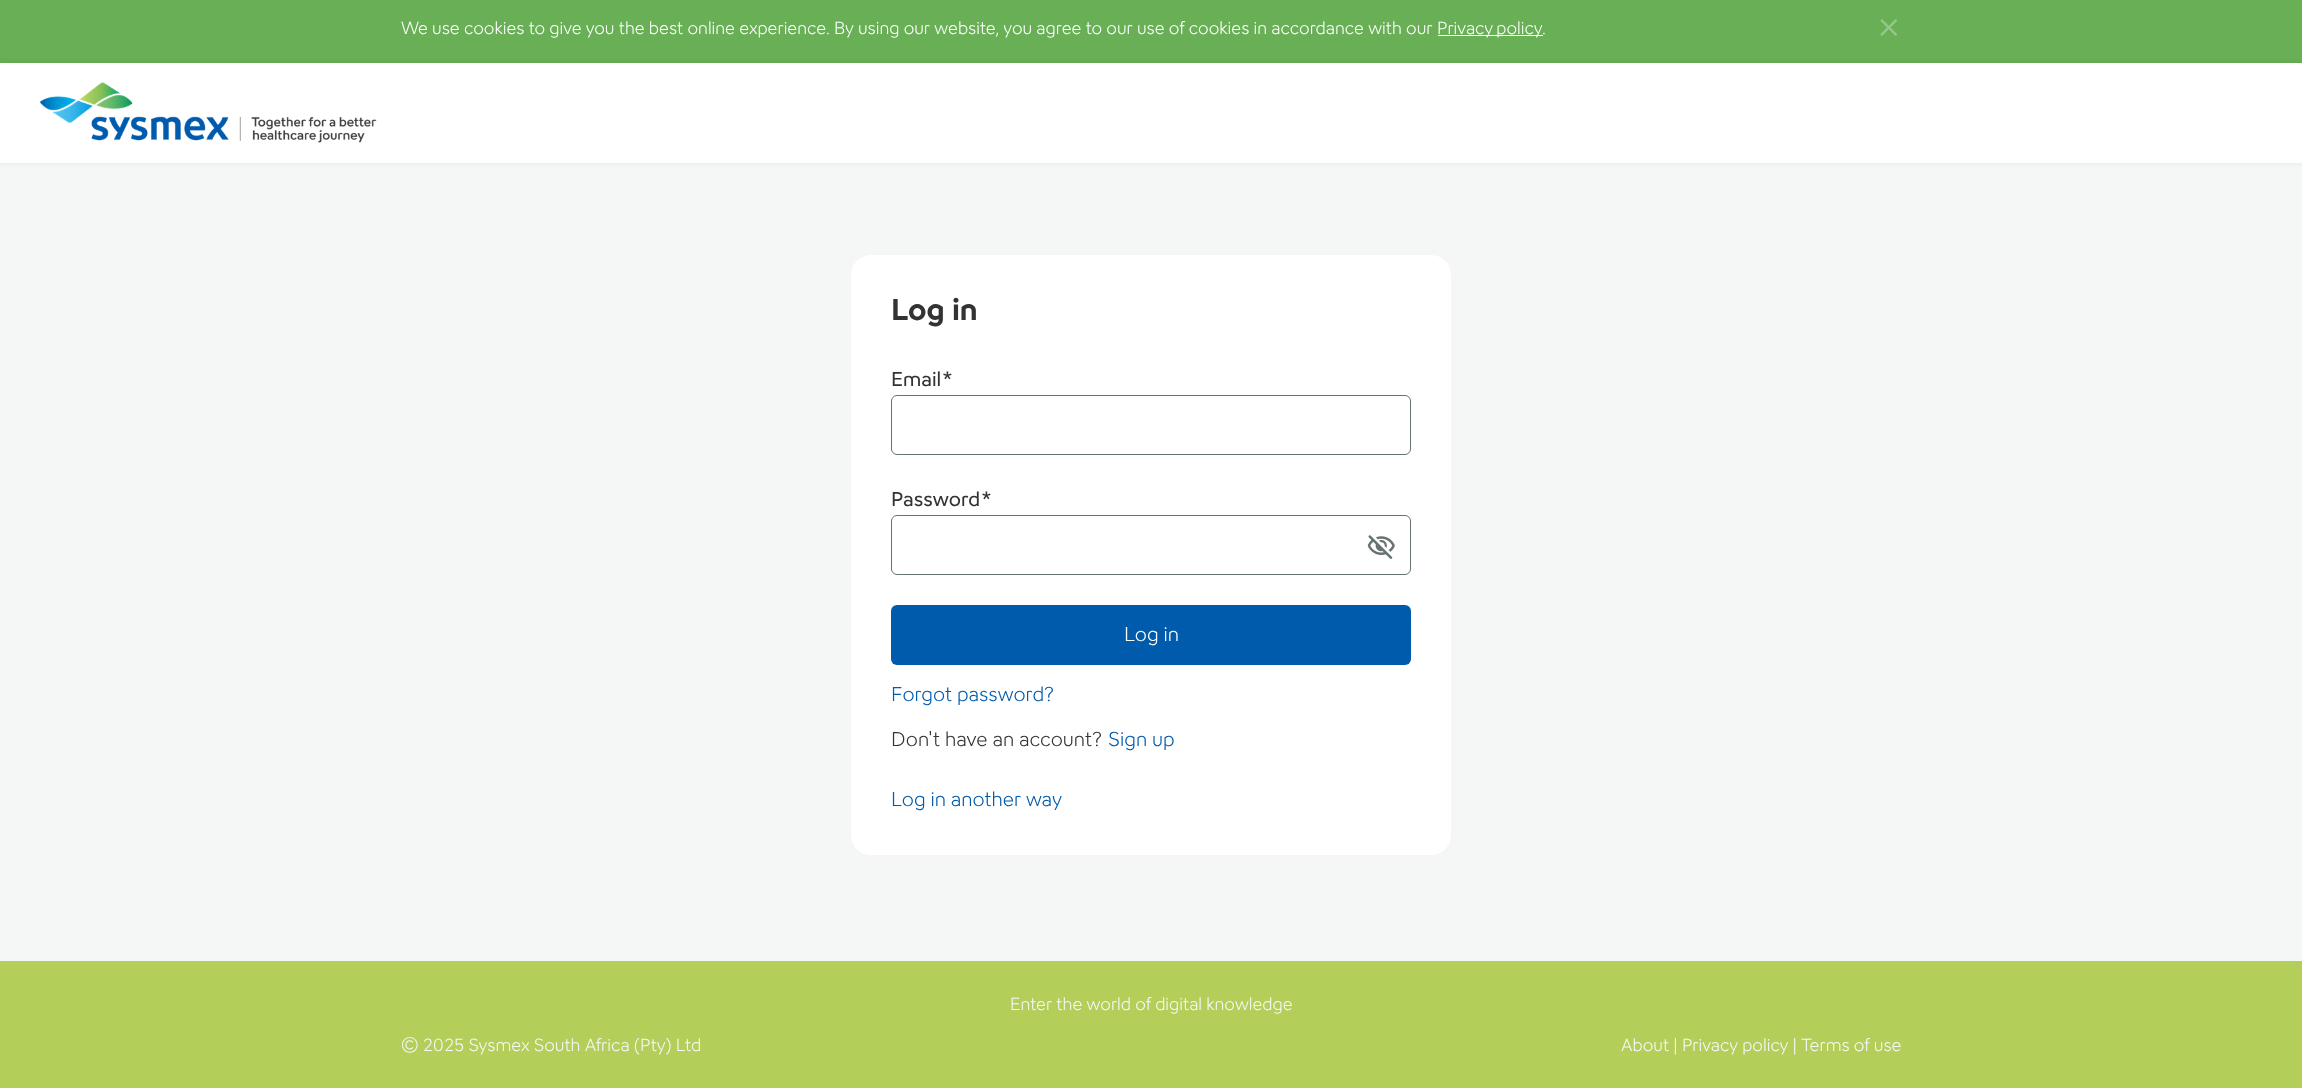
<svg xmlns="http://www.w3.org/2000/svg" width="2302" height="1088" viewBox="0 0 2302 1088">
  <style>
    .t1 { font: 300 17.5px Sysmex; fill: #fff; }
    .t2 { font: bold 30px Sysmex; fill: #333; }
    .t3 { font: 20px Sysmex; fill: #333; }
    .t4 { font: 300 20px Sysmex; fill: #fff; }
    .t5 { font: 300 20px Sysmex; fill: #005bac; }
    .t6 { font: 300 20px Sysmex; fill: #333; }
    .t7 { font: 300 17.5px Sysmex; fill: #f7f7f7; }
  </style>
  <rect width="100%" height="100%" fill="#f5f6f6"/>
  <rect x="0" y="0" width="2302" height="63" fill="#68af56"/>
  <text x="401" y="34" class="t1">We use cookies to give you the best online experience. By using our website, you agree to our use of cookies in accordance with our</text>
  <rect x="1438" y="35" width="105" height="1" fill="#fff"/>
  <text x="1437" y="34" word-spacing="-1" class="t1">Privacy policy</text>
  <text x="1542" y="34" class="t1">.</text>
  <image x="1880" y="19" width="17" height="17" href="images/1.png"/>
  <rect x="0" y="63" width="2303" height="100" fill="#21222214" filter="blur(2.5px)"/>
  <rect x="0" y="63" width="2302" height="100" fill="#fff"/>
  <image x="40" y="82" width="337" height="61" href="images/2.png"/>
  <rect x="851" y="255" width="600" height="600" rx="20" fill="#fff"/>
  <text x="891" y="320" class="t2">Log in</text>
  <text x="891" y="386" class="t3">Email</text>
  <text x="942" y="386" class="t3">*</text>
  <rect x="891.5" y="395.5" width="519" height="59" rx="5.5" fill="none" stroke="#687272"/>
  <text x="891" y="506" class="t3">Password</text>
  <text x="981" y="506" class="t3">*</text>
  <rect x="891.5" y="515.5" width="519" height="59" rx="5.5" fill="none" stroke="#687272"/>
  <image x="1367" y="535" width="28" height="24" href="images/3.png"/>
  <rect x="891" y="605" width="520" height="60" rx="6" fill="#005bac"/>
  <text x="1124" y="641" class="t4">Log in</text>
  <text x="891" y="701" class="t5">Forgot password?</text>
  <text x="891" y="746" class="t6">Don't have an account?</text>
  <text x="1108" y="746" class="t5">Sign up</text>
  <text x="891" y="806" class="t5">Log in another way</text>
  <rect x="0" y="961" width="2302" height="127" fill="#b3cf5a"/>
  <text x="1010" y="1010" class="t7">Enter the world of digital knowledge</text>
  <text x="401" y="1051" class="t7">© 2025 Sysmex South Africa (Pty) Ltd</text>
  <text x="1621" y="1051" class="t7">About | Privacy policy | Terms of use</text>
</svg>
